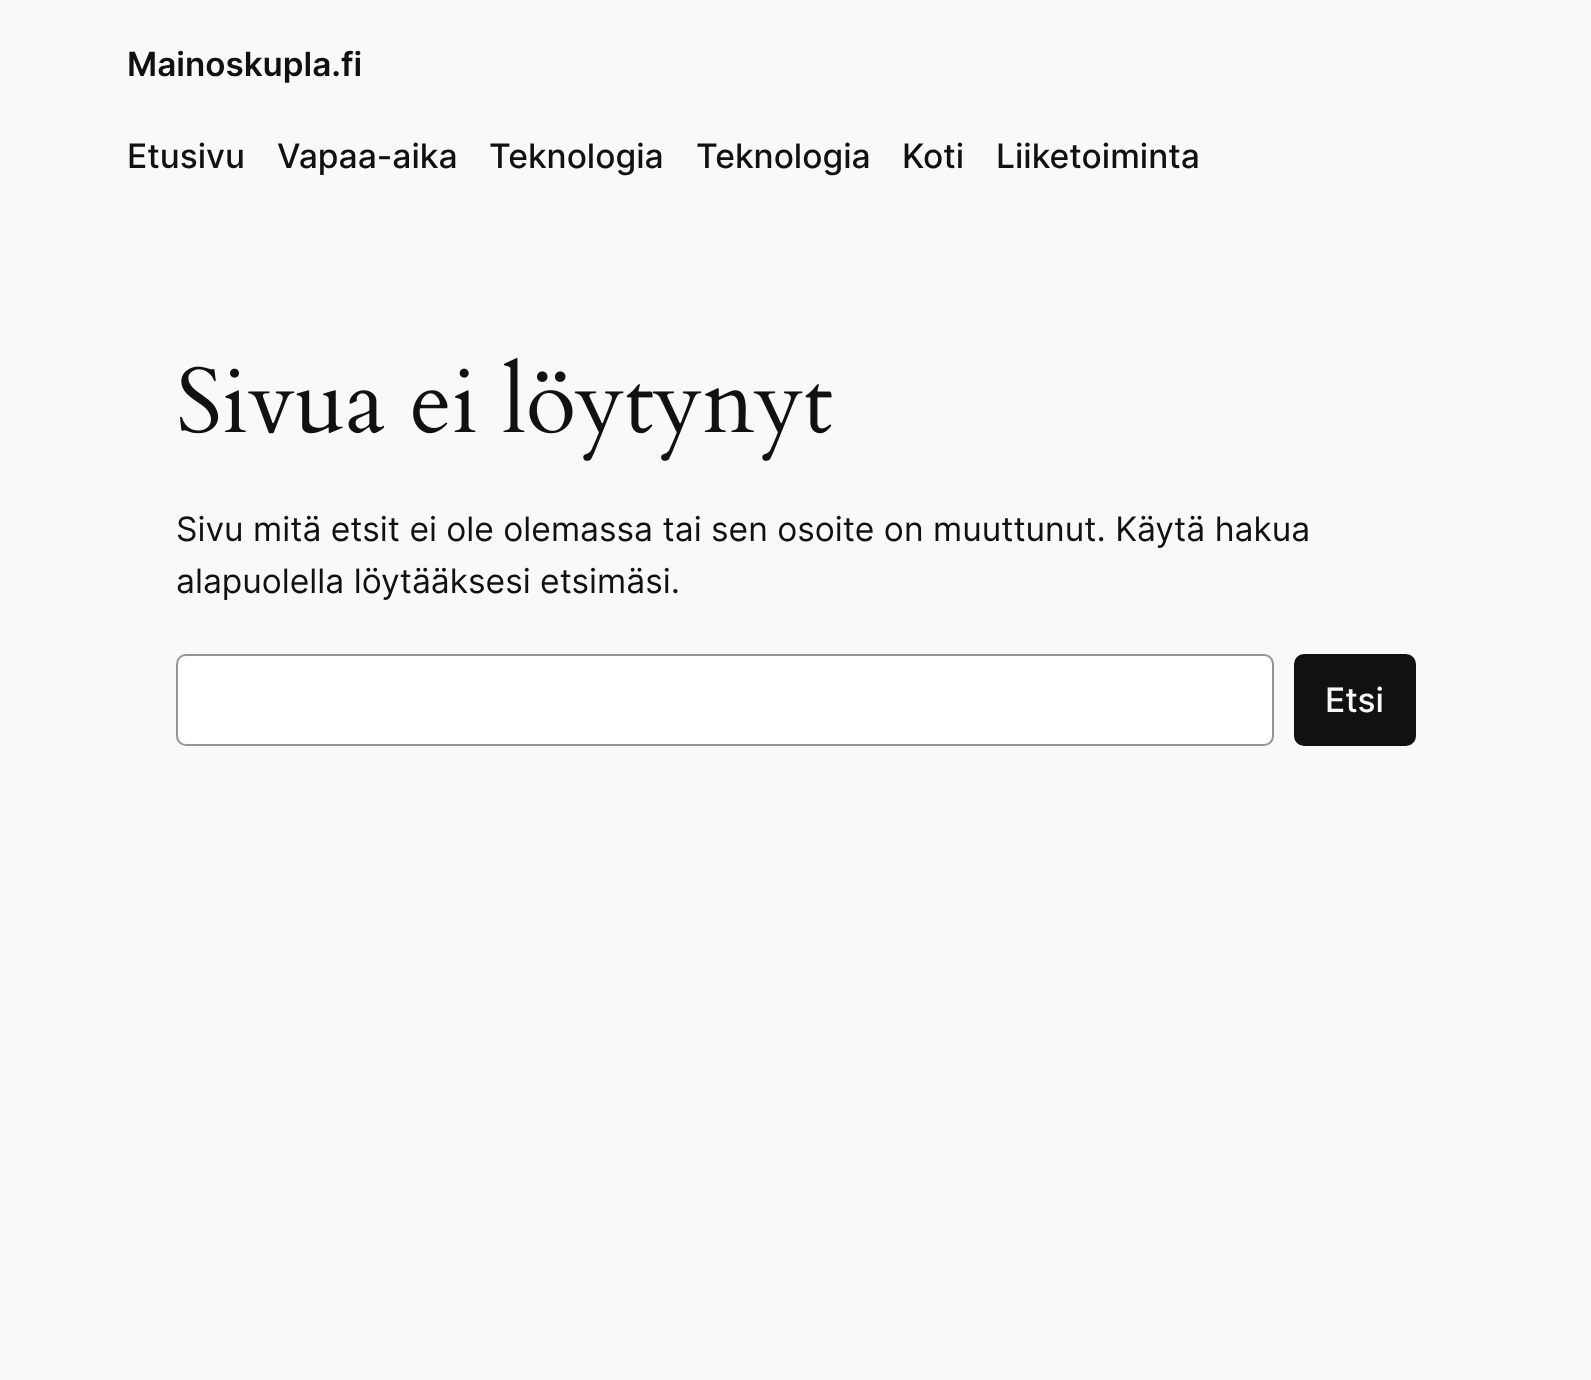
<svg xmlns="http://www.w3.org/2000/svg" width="1591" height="1380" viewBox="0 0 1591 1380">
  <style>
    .t1 { font: 600 33.25px Inter; fill: #111; }
    .t2 { font: 500 33.6px Inter; fill: #111; }
    .t3 { font: 33.6px Inter; fill: #111; }
    .t4 { font: 500 33.6px Inter; fill: #f9f9f9; }
  </style>
  <rect width="100%" height="100%" fill="#f9f9f9"/>
  <text x="127" y="76" class="t1">Mainoskupla.fi</text>
  <text x="127" y="168" class="t2">Etusivu</text>
  <text x="277" y="168" class="t2">Vapaa-aika</text>
  <text x="489" y="168" class="t2">Teknologia</text>
  <text x="696" y="168" class="t2">Teknologia</text>
  <text x="902" y="168" class="t2">Koti</text>
  <text x="996" y="168" class="t2">Liiketoiminta</text>
  <image x="180" y="358" width="652" height="103" href="images/1.png"/>
  <text x="176" y="541" class="t3">Sivu mitä etsit ei ole olemassa tai sen osoite on muuttunut. Käytä hakua</text>
  <text x="176" y="593" class="t3">alapuolella löytääksesi etsimäsi.</text>
  <rect x="177" y="655" width="1096" height="90" rx="9" fill="#fff" stroke="#949494" stroke-width="2"/>
  <rect x="1294" y="654" width="122" height="92" rx="10" fill="#111"/>
  <text x="1325" y="712" class="t4">Etsi</text>
</svg>
